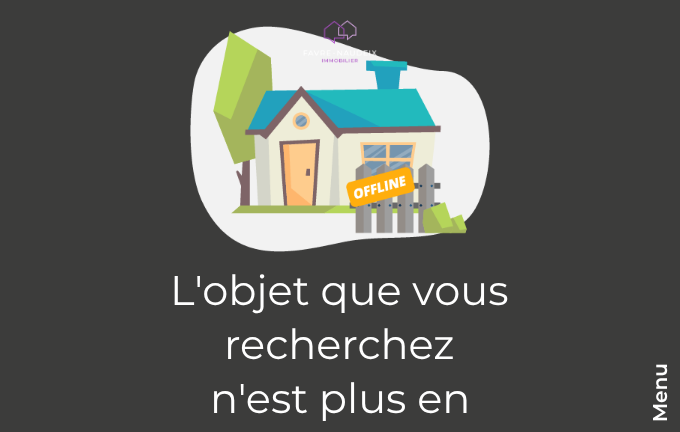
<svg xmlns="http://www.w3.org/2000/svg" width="680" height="432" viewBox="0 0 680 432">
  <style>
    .t1 { font: 41.5px Montserrat; fill: #fff; }
    .t2 { font: 600 20px Montserrat; fill: #fff; }
  </style>
  <rect width="100%" height="100%" fill="#3c3c3b"/>
  <image x="190" y="26" width="300" height="226" href="images/1.png"/>
  <text x="170" y="305" class="t1">L'objet que vous</text>
  <text x="224" y="359" class="t1">recherchez</text>
  <text x="210" y="413" class="t1">n'est plus en</text>
  <image x="303" y="20" width="74" height="43" href="images/2.png"/>
  <text x="667" y="422" transform="rotate(-90 667 422)" class="t2">Menu</text>
</svg>
